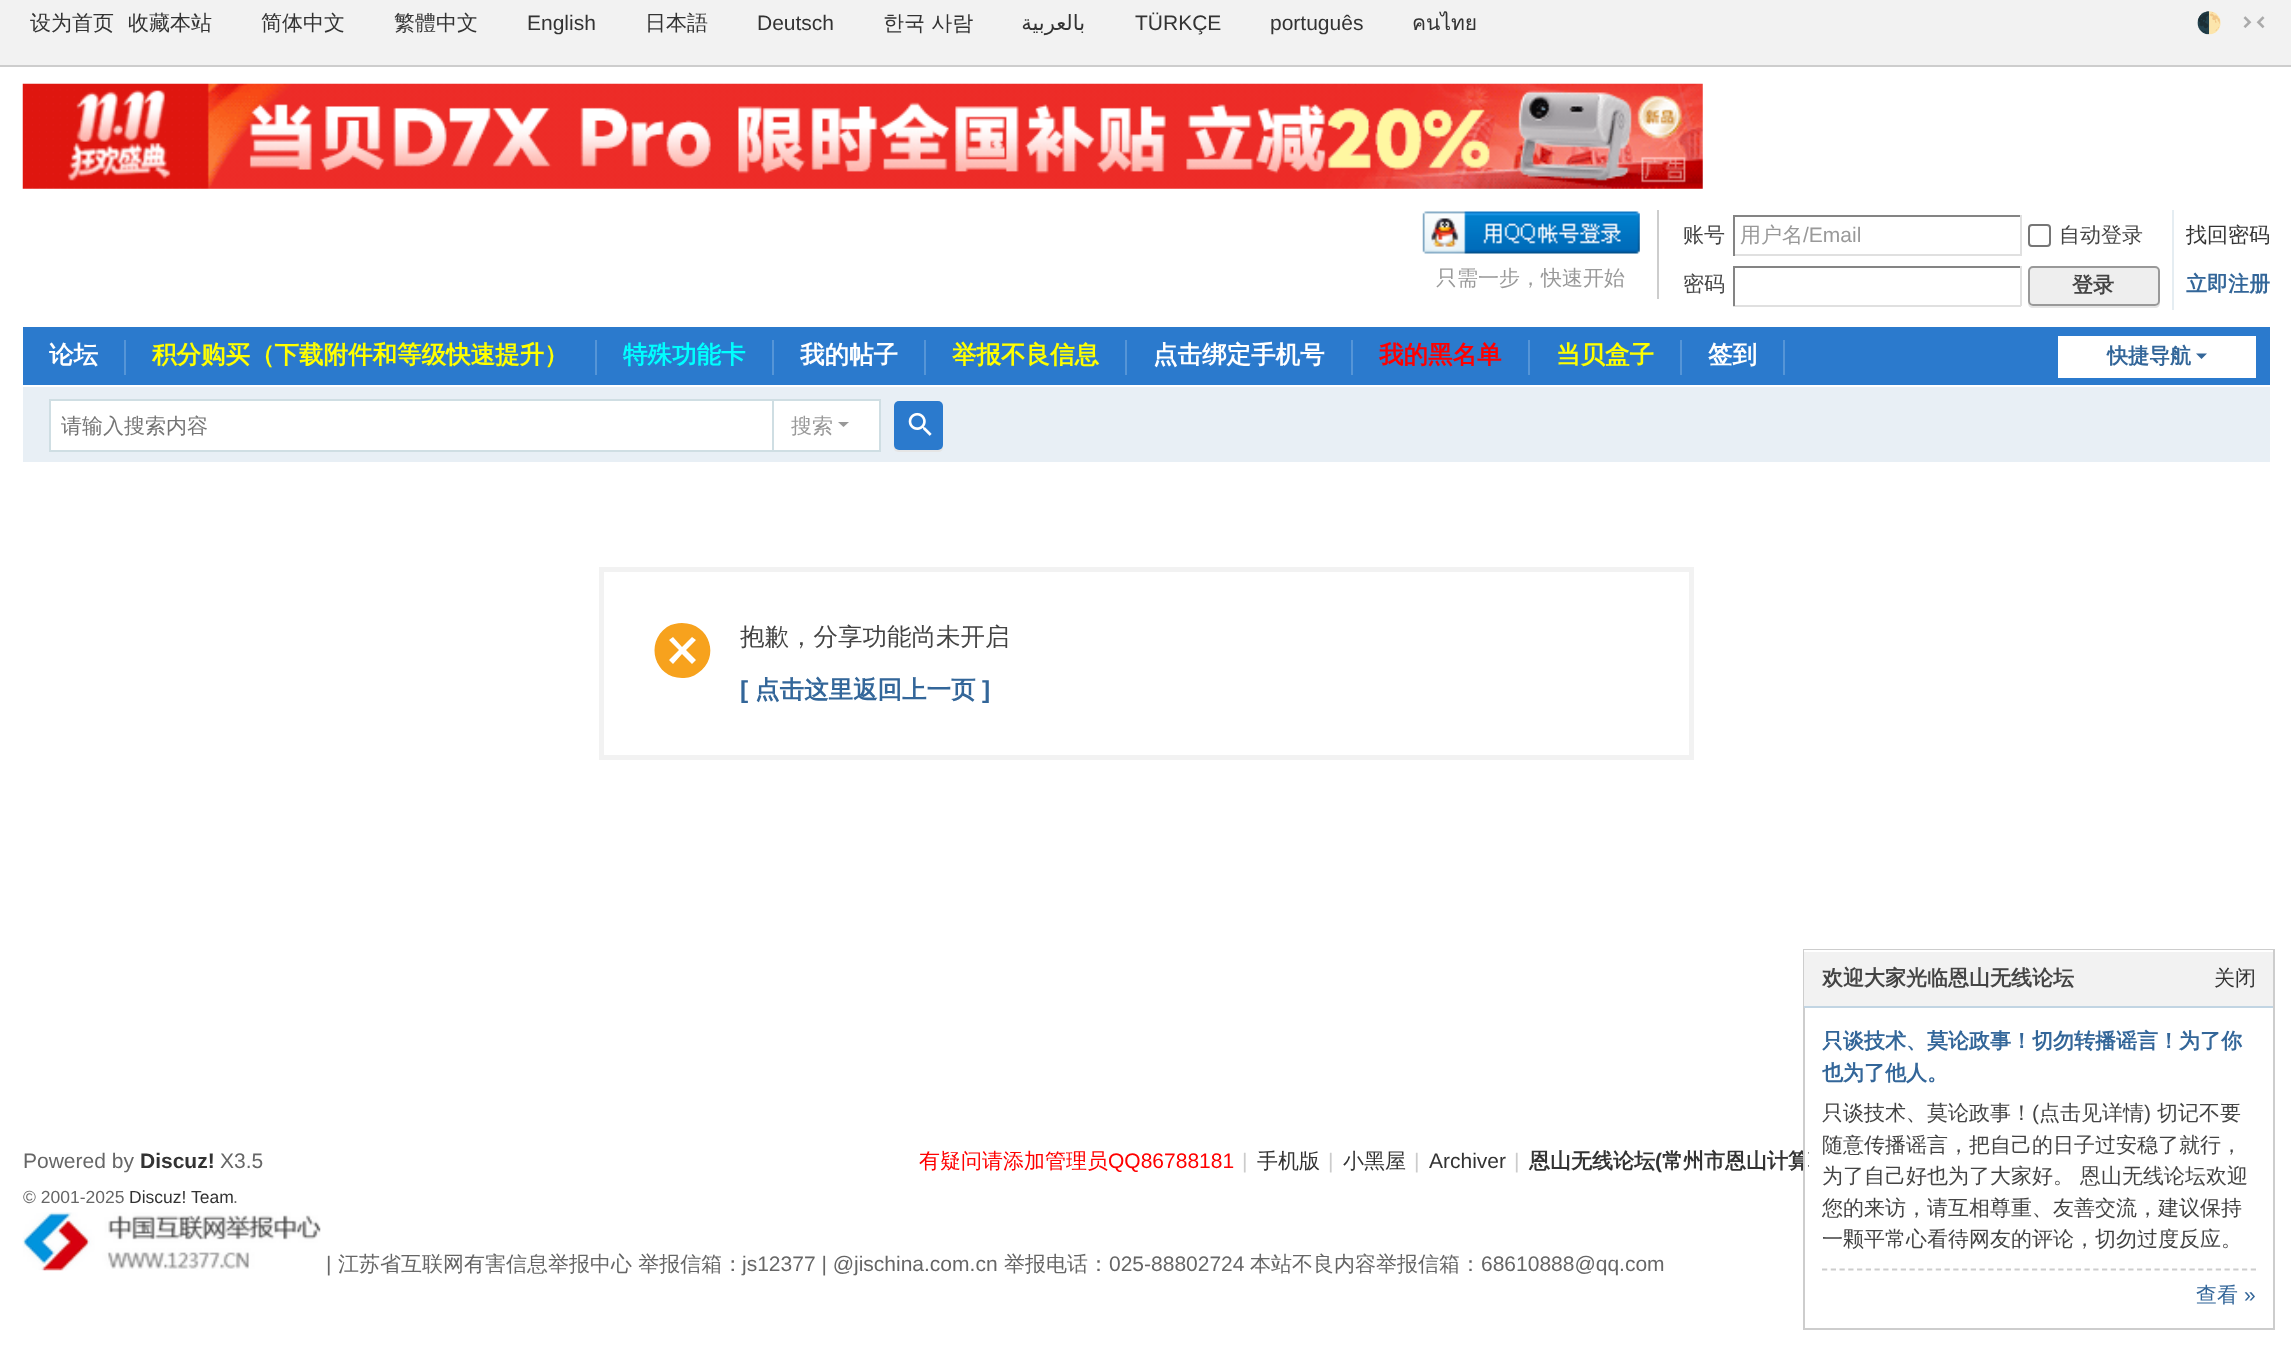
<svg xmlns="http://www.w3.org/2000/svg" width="2291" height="1347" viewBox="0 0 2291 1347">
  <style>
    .t1 { font: 500 21px WenQuanYi Zen Hei; fill: #333; }
    .t2 { font: 21px Liberation Sans; fill: #333; }
    .t3 { font: 21px DejaVu Sans; direction: rtl; fill: #333; }
    .t4 { font: 21px Loma; fill: #333; }
    .t5 { font: 21px Noto Color Emoji; fill: #333; }
    .t6 { font: 500 21px WenQuanYi Zen Hei; fill: #999; }
    .t7 { font: 500 21px WenQuanYi Zen Hei; fill: #444; }
    .t8 { font: 21px Liberation Sans; fill: #999; }
    .t9 { font: bold 21px WenQuanYi Zen Hei; fill: #444; }
    .t10 { font: bold 21px WenQuanYi Zen Hei; fill: #369; }
    .t11 { font: bold 24.5px WenQuanYi Zen Hei; fill: #fff; }
    .t12 { font: bold 24.5px WenQuanYi Zen Hei; fill: #ff0; }
    .t13 { font: bold 24.5px WenQuanYi Zen Hei; fill: #0ff; }
    .t14 { font: bold 24.5px WenQuanYi Zen Hei; fill: #f00; }
    .t15 { font: 500 21px WenQuanYi Zen Hei; fill: #757575; }
    .t16 { font: 500 24.5px WenQuanYi Zen Hei; fill: #444; }
    .t17 { font: bold 24.5px Liberation Sans; fill: #369; }
    .t18 { font: bold 24.5px WenQuanYi Zen Hei; fill: #369; }
    .t19 { font: 21px Liberation Sans; fill: #666; }
    .t20 { font: bold 21px Liberation Sans; fill: #333; }
    .t21 { font: 17.5px Liberation Sans; fill: #666; }
    .t22 { font: 17.5px Liberation Sans; fill: #333; }
    .t23 { font: 500 21px WenQuanYi Zen Hei; fill: #f00; }
    .t24 { font: 21px Liberation Sans; fill: #f00; }
    .t25 { font: 21px Liberation Sans; fill: #ccc; }
    .t26 { font: bold 21px WenQuanYi Zen Hei; fill: #333; }
    .t27 { font: 500 21px WenQuanYi Zen Hei; fill: #666; }
    .t28 { font: 21px Liberation Sans; fill: #444; }
    .t29 { font: 500 21px WenQuanYi Zen Hei; fill: #369; }
    .t30 { font: 21px Liberation Sans; fill: #369; }
  </style>
  <rect width="100%" height="100%" fill="#fff"/>
  <rect x="0" y="0" width="2291" height="65" fill="#f2f2f2"/>
  <rect x="0" y="65" width="2291" height="2" fill="#cdcdcd"/>
  <text x="30" y="30" class="t1">设为首页</text>
  <text x="128" y="30" class="t1">收藏本站</text>
  <text x="261" y="30" class="t1">简体中文</text>
  <text x="394" y="30" class="t1">繁體中文</text>
  <text x="527" y="30" class="t2">English</text>
  <text x="645" y="30" class="t1">日本語</text>
  <text x="757" y="30" class="t2">Deutsch</text>
  <text x="883" y="30" class="t1">한국 사람</text>
  <text x="1085" y="30" class="t3">بالعربية</text>
  <text x="1135" y="30" class="t2">TÜRKÇE</text>
  <text x="1270" y="30" class="t2">português</text>
  <text x="1412" y="30" class="t4">คนไทย</text>
  <text x="2196" y="30" class="t5">🌓</text>
  <image x="2243" y="16" width="22" height="13" href="images/1.png"/>
  <image x="22" y="83" width="1681" height="106" href="images/2.png"/>
  <rect x="1657" y="210" width="2" height="89" fill="#cdcdcd"/>
  <image x="1422" y="211" width="218" height="43" href="images/3.png"/>
  <text x="1436" y="285" class="t6">只需一步，快速开始</text>
  <text x="1683" y="242" class="t7">账号</text>
  <rect x="1733" y="215" width="288" height="2" fill="#848484"/>
  <rect x="2020" y="215" width="2" height="41" fill="#e0e0e0"/>
  <rect x="1733" y="254" width="288" height="2" fill="#e0e0e0"/>
  <rect x="1733" y="215" width="2" height="41" fill="#848484"/>
  <text x="1740" y="242" class="t6">用户名</text>
  <text x="1803" y="242" class="t8">/Email</text>
  <rect x="2029" y="225" width="21" height="21" rx="3" fill="none" stroke="#767676" stroke-width="2"/>
  <text x="2059" y="242" class="t7">自动登录</text>
  <text x="2186" y="242" class="t1">找回密码</text>
  <text x="1683" y="291" class="t7">密码</text>
  <rect x="1733" y="266" width="288" height="2" fill="#848484"/>
  <rect x="2020" y="266" width="2" height="40" fill="#e0e0e0"/>
  <rect x="1733" y="305" width="288" height="2" fill="#e0e0e0"/>
  <rect x="1733" y="266" width="2" height="40" fill="#848484"/>
  <rect x="2172" y="210" width="2" height="100" fill="#e5edf2"/>
  <path d="M2028 271V303C2028 306 2030 308 2033 308H2155C2158 308 2160 306 2160 303V273L2159 271L2160 301C2160 304 2157 306 2154 306H2034C2031 306 2028 304 2028 301Z" fill="#e5e5e5"/>
  <rect x="2029" y="267" width="130" height="38" rx="4" fill="#eee" stroke="#999" stroke-width="2"/>
  <text x="2072" y="292" class="t9">登录</text>
  <text x="2186" y="291" class="t10">立即注册</text>
  <rect x="23" y="327" width="2247" height="58" fill="#2b7acd"/>
  <rect x="124" y="340" width="2" height="35" fill="#5595d7"/>
  <text x="49" y="363" class="t11">论坛</text>
  <rect x="595" y="340" width="2" height="35" fill="#5595d7"/>
  <text x="152" y="363" class="t12">积分购买（下载附件和等级快速提升）</text>
  <rect x="772" y="340" width="2" height="35" fill="#5595d7"/>
  <text x="623" y="363" class="t13">特殊功能卡</text>
  <rect x="924" y="340" width="2" height="35" fill="#5595d7"/>
  <text x="800" y="363" class="t11">我的帖子</text>
  <rect x="1125" y="340" width="2" height="35" fill="#5595d7"/>
  <text x="952" y="363" class="t12">举报不良信息</text>
  <rect x="1351" y="340" width="2" height="35" fill="#5595d7"/>
  <text x="1153" y="363" class="t11">点击绑定手机号</text>
  <rect x="1528" y="340" width="2" height="35" fill="#5595d7"/>
  <text x="1379" y="363" class="t14">我的黑名单</text>
  <rect x="1680" y="340" width="2" height="35" fill="#5595d7"/>
  <text x="1556" y="363" class="t12">当贝盒子</text>
  <rect x="1783" y="340" width="2" height="35" fill="#5595d7"/>
  <text x="1708" y="363" class="t11">签到</text>
  <rect x="2058" y="336" width="198" height="42" fill="#fff"/>
  <text x="2107" y="363" class="t10">快捷导航</text>
  <path d="M2196 353.5H2207L2201.5 359Z" fill="#369"/>
  <rect x="23" y="387" width="2247" height="75" fill="#e8eff5"/>
  <rect x="770" y="399" width="110" height="2" fill="#cfdee3"/>
  <rect x="879" y="399" width="2" height="53" fill="#cfdee3"/>
  <rect x="770" y="450" width="110" height="2" fill="#cfdee3"/>
  <rect x="50" y="400" width="723" height="51" fill="#fff" stroke="#cfdee3" stroke-width="2"/>
  <text x="61" y="433" class="t15">请输入搜索内容</text>
  <rect x="774" y="401" width="105" height="49" fill="#fff"/>
  <text x="791" y="433" class="t6">搜索</text>
  <path d="M838 422H849L843.5 427Z" fill="#999"/>
  <path d="M894 406V440C894 443 893 448 895 451L898 452H939C941 452 942 450 943 449V446C942 448 940 450 938 450H900C897 450 894 447 894 444Z" fill="#e5e5e5"/>
  <rect x="894" y="401" width="49" height="49" rx="5" fill="#2b7acd"/>
  <image x="908" y="412" width="24" height="24" href="images/4.png"/>
  <rect x="601.5" y="569.5" width="1090" height="188" fill="none" stroke="#f2f2f2" stroke-width="5"/>
  <path d="M682 623C677 623 672 624 667 627C644 643 655 678 682 678C688 678 693 677 698 673C721 658 710 623 682 623ZM696 660L692 664L682 654L673 664L669 660L679 650L669 640L673 637L682 647L692 637L696 640L686 650Z" fill="#f7a21d"/>
  <text x="740" y="645" class="t16">抱歉，分享功能尚未开启</text>
  <text x="740" y="698" class="t17">[</text>
  <text x="755" y="698" class="t18">点击这里返回上一页</text>
  <text x="982" y="698" class="t17">]</text>
  <text x="23" y="1168" class="t19">Powered by</text>
  <text x="140" y="1168" class="t20">Discuz!</text>
  <text x="220" y="1168" class="t19">X3.5</text>
  <text x="23" y="1203" class="t21">© 2001-2025</text>
  <text x="129" y="1203" class="t22">Discuz! Team</text>
  <text x="233" y="1203" class="t21">.</text>
  <text x="919" y="1168" class="t23">有疑问请添加管理员</text>
  <text x="1108" y="1168" class="t24">QQ86788181</text>
  <text x="1242" y="1168" class="t25">|</text>
  <text x="1257" y="1168" class="t1">手机版</text>
  <text x="1328" y="1168" class="t25">|</text>
  <text x="1343" y="1168" class="t1">小黑屋</text>
  <text x="1414" y="1168" class="t25">|</text>
  <text x="1429" y="1168" class="t2">Archiver</text>
  <text x="1514" y="1168" class="t25">|</text>
  <text x="1529" y="1168" class="t26">恩山无线论坛</text>
  <text x="1655" y="1168" class="t20">(</text>
  <text x="1662" y="1168" class="t26">常州市恩山计算</text>
  <image x="22" y="1212" width="299" height="59" href="images/5.png"/>
  <text x="326" y="1271" class="t19">|</text>
  <text x="338" y="1271" class="t27">江苏省互联网有害信息举报中心 举报信箱：</text>
  <text x="742" y="1271" class="t19">js12377 | @jischina.com.cn</text>
  <text x="1004" y="1271" class="t27">举报电话：</text>
  <text x="1109" y="1271" class="t19">025-88802724</text>
  <text x="1250" y="1271" class="t27">本站不良内容举报信箱：</text>
  <text x="1481" y="1271" class="t19">68610888@qq.com</text>
  <rect x="1803" y="1152" width="5" height="15" fill="#fff"/>
  <rect x="1804" y="950" width="470" height="379" fill="none" stroke="#cdcdcd" stroke-width="2"/>
  <rect x="1804" y="952" width="469" height="54" fill="#f2f2f2"/>
  <rect x="1804" y="950" width="469" height="2" fill="#fff"/>
  <rect x="1804" y="1006" width="469" height="2" fill="#c2d5e3"/>
  <text x="1822" y="985" class="t9">欢迎大家光临恩山无线论坛</text>
  <text x="2214" y="985" class="t1">关闭</text>
  <path d="M1822 1269.5H2256" fill="none" stroke="#cdcdcd" stroke-width="1.8" stroke-dasharray="5.25 3.5"/>
  <text x="1822" y="1048" class="t10">只谈技术、莫论政事！切勿转播谣言！为了你</text>
  <text x="1822" y="1080" class="t10">也为了他人。</text>
  <text x="1822" y="1120" class="t7">只谈技术、莫论政事！</text>
  <text x="2032" y="1120" class="t28">(</text>
  <text x="2039" y="1120" class="t7">点击见详情</text>
  <text x="2144" y="1120" class="t28">)</text>
  <text x="2157" y="1120" class="t7">切记不要</text>
  <text x="1822" y="1152" class="t7">随意传播谣言，把自己的日子过安稳了就行，</text>
  <text x="1822" y="1183" class="t7">为了自己好也为了大家好。</text>
  <text x="2080" y="1183" class="t7">恩山无线论坛欢迎</text>
  <text x="1822" y="1215" class="t7">您的来访，请互相尊重、友善交流，建议保持</text>
  <text x="1822" y="1246" class="t7">一颗平常心看待网友的评论，切勿过度反应。</text>
  <text x="2196" y="1302" class="t29">查看</text>
  <text x="2244" y="1302" class="t30">»</text>
</svg>
